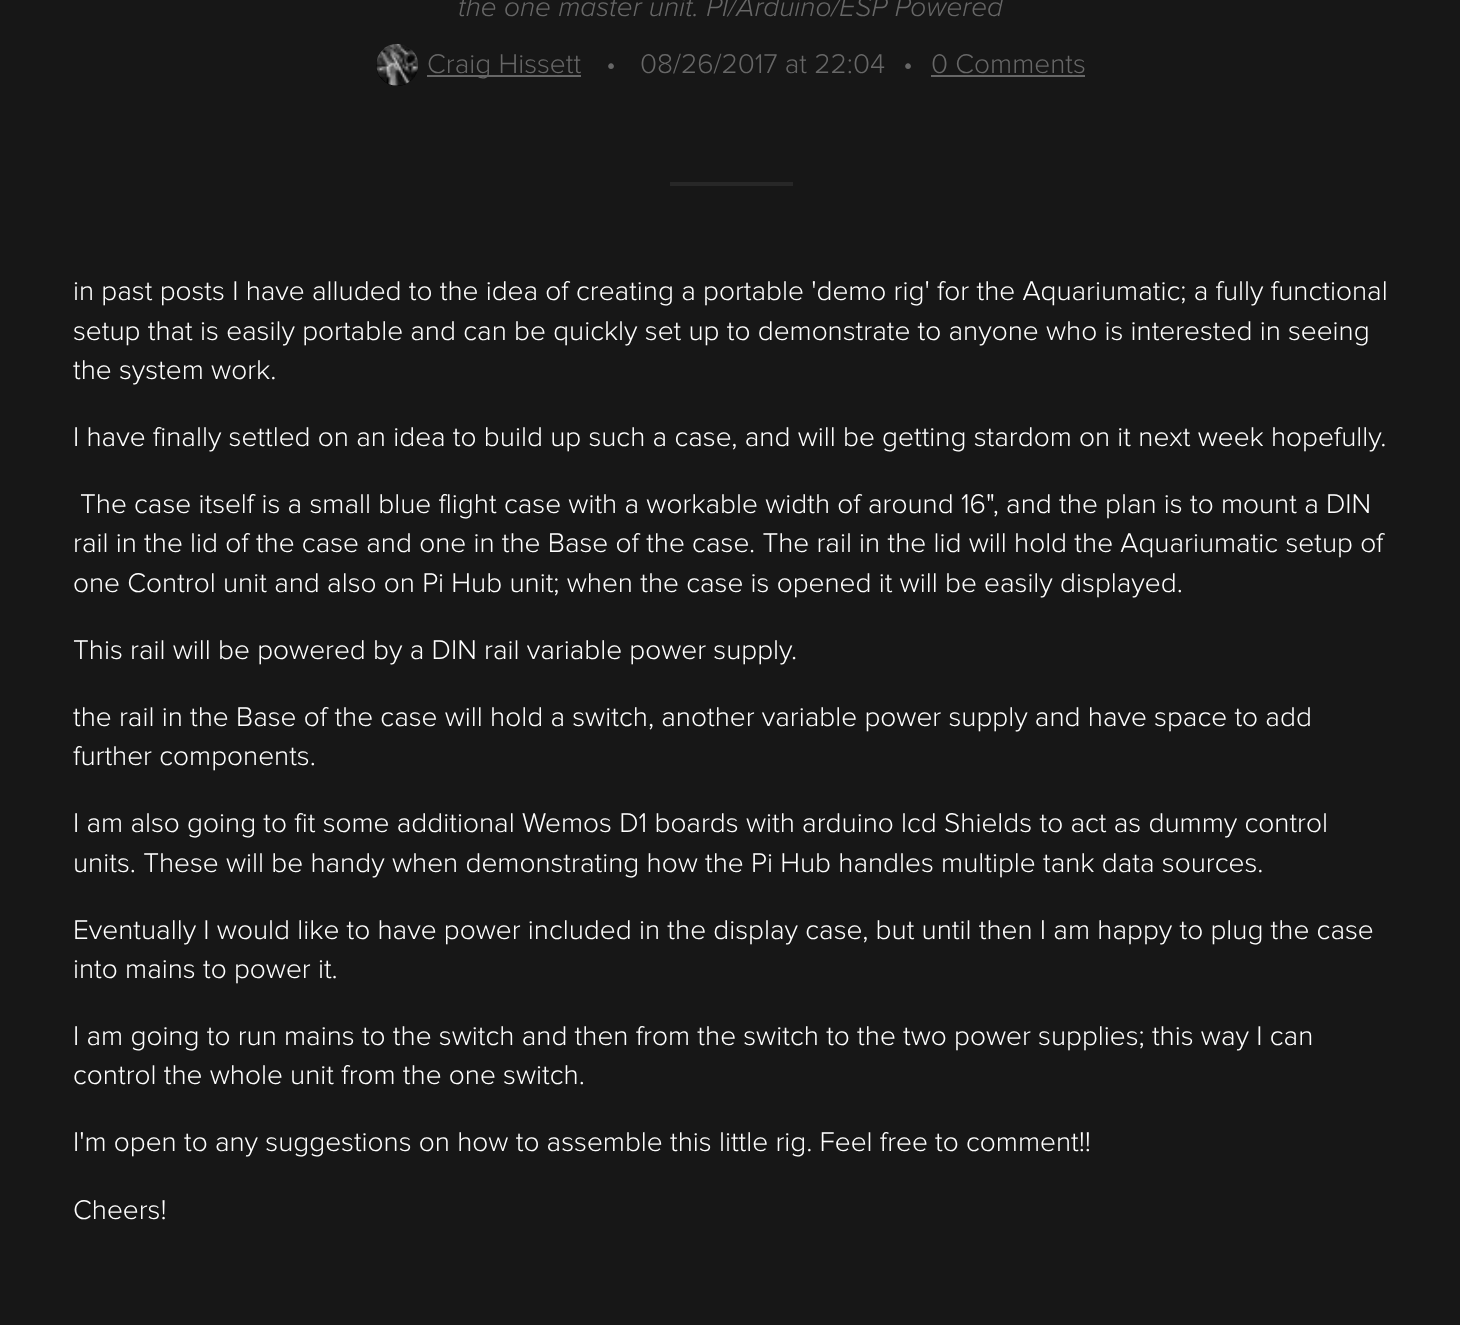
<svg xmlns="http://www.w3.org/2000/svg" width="1460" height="1325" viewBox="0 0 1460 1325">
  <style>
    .t1 { font: italic 300 28px Proxima Nova; fill: #676767; }
    .t2 { font: 300 28px Proxima Nova; fill: #676767; }
    .t3 { font: 300 28px Proxima Nova; fill: #fff; }
  </style>
  <rect width="100%" height="100%" fill="#171717"/>
  <text x="458" y="16" class="t1">the one master unit. PI/Arduino/ESP Powered</text>
  <circle cx="397" cy="65" r="21" fill="#000"/>
  <image x="376" y="43" width="42" height="43" href="images/1.png"/>
  <rect x="427" y="75" width="154" height="2" fill="#676767"/>
  <text x="427" y="73" class="t2">Craig Hissett</text>
  <text x="606" y="73" class="t2">•</text>
  <text x="640" y="73" class="t2">08/26/2017 at 22:04</text>
  <text x="903" y="73" class="t2">•</text>
  <text x="931" y="73" class="t2">0 Comments</text>
  <rect x="931" y="75" width="154" height="2" fill="#676767"/>
  <rect x="670" y="182" width="123" height="4" fill="#272727"/>
  <text x="73" y="300" class="t3">in past posts I have alluded to the idea of creating a portable 'demo rig' for the Aquariumatic; a fully functional</text>
  <text x="73" y="340" class="t3">setup that is easily portable and can be quickly set up to demonstrate to anyone who is interested in seeing</text>
  <text x="73" y="379" class="t3">the system work.</text>
  <text x="73" y="446" class="t3">I have finally settled on an idea to build up such a case, and will be getting stardom on it next week hopefully.</text>
  <text x="80" y="513" class="t3">The case itself is a small blue flight case with a workable width of around 16", and the plan is to mount a DIN</text>
  <text x="73" y="552" class="t3">rail in the lid of the case and one in the Base of the case. The rail in the lid will hold the Aquariumatic setup of</text>
  <text x="73" y="592" class="t3">one Control unit and also on Pi Hub unit; when the case is opened it will be easily displayed.</text>
  <text x="73" y="659" class="t3">This rail will be powered by a DIN rail variable power supply.</text>
  <text x="73" y="726" class="t3">the rail in the Base of the case will hold a switch, another variable power supply and have space to add</text>
  <text x="73" y="765" class="t3">further components.</text>
  <text x="73" y="832" class="t3">I am also going to fit some additional Wemos D1 boards with arduino lcd Shields to act as dummy control</text>
  <text x="73" y="872" class="t3">units. These will be handy when demonstrating how the Pi Hub handles multiple tank data sources.</text>
  <text x="73" y="939" class="t3">Eventually I would like to have power included in the display case, but until then I am happy to plug the case</text>
  <text x="73" y="978" class="t3">into mains to power it.</text>
  <text x="73" y="1045" class="t3">I am going to run mains to the switch and then from the switch to the two power supplies; this way I can</text>
  <text x="73" y="1084" class="t3">control the whole unit from the one switch.</text>
  <text x="73" y="1151" class="t3">I'm open to any suggestions on how to assemble this little rig. Feel free to comment!!</text>
  <text x="73" y="1219" class="t3">Cheers!</text>
</svg>
